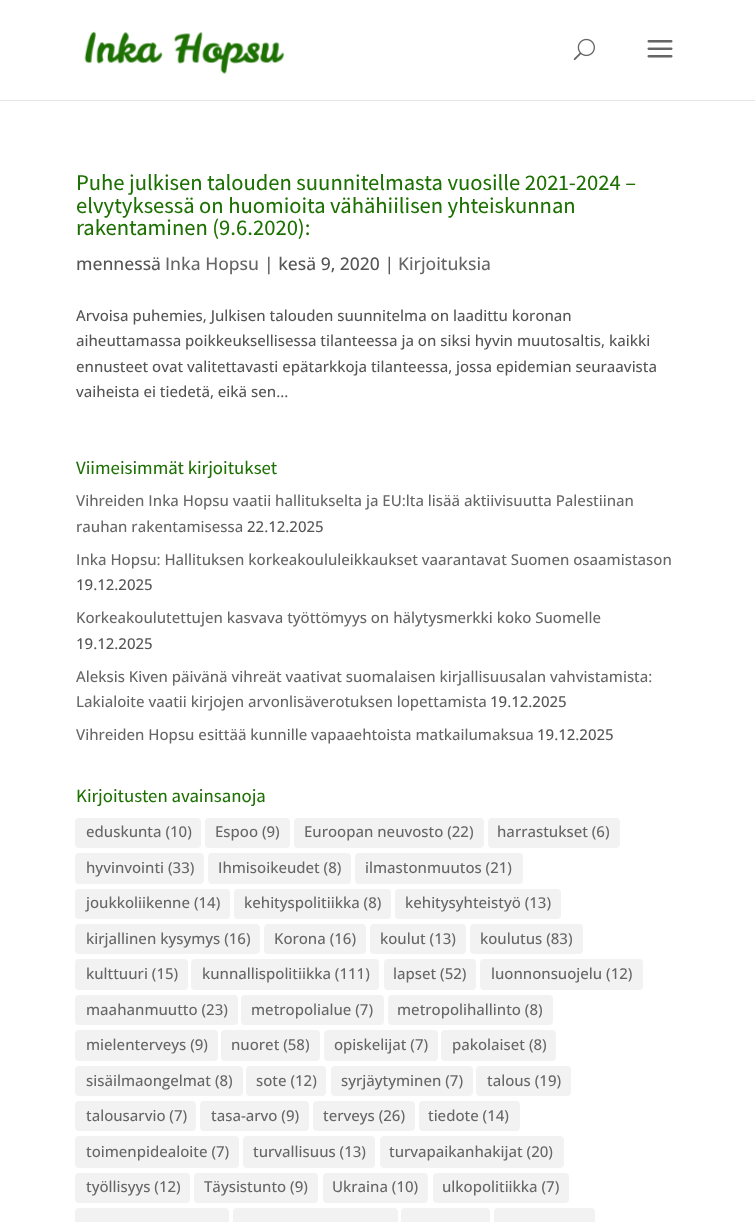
<svg xmlns="http://www.w3.org/2000/svg" width="755" height="1222" viewBox="0 0 755 1222">
  <style>
    .t1 { font: 200 22.5px Assistant; fill: #1d7002; }
    .t2 { font: 500 17.5px Open Sans; fill: #555; }
    .t3 { font: 500 17.5px Open Sans; fill: #666; }
    .t4 { font: 500 15px Open Sans; fill: #555; }
    .t5 { font: 200 18.75px Assistant; fill: #1d7002; }
    .t6 { font: 500 15px Open Sans; fill: #666; }
  </style>
  <rect width="100%" height="100%" fill="#fff"/>
  <rect x="0" y="100" width="755" height="1" fill="#e6e6e6"/>
  <image x="84" y="31" width="201" height="43" href="images/1.png"/>
  <image x="573" y="38" width="22" height="23" href="images/2.png"/>
  <image x="647" y="40" width="26" height="18" href="images/3.png"/>
  <text x="76" y="190" class="t1">Puhe julkisen talouden suunnitelmasta vuosille 2021-2024 –</text>
  <text x="76" y="213" class="t1">elvytyksessä on huomioita vähähiilisen yhteiskunnan</text>
  <text x="76" y="235" class="t1">rakentaminen (9.6.2020):</text>
  <text x="76" y="270" class="t2">mennessä</text>
  <text x="165" y="270" class="t3">Inka Hopsu</text>
  <text x="264" y="270" class="t2">| kesä 9, 2020 |</text>
  <text x="398" y="270" class="t3">Kirjoituksia</text>
  <text x="76" y="321" class="t4">Arvoisa puhemies, Julkisen talouden suunnitelma on laadittu koronan</text>
  <text x="76" y="346" class="t4">aiheuttamassa poikkeuksellisessa tilanteessa ja on siksi hyvin muutosaltis, kaikki</text>
  <text x="76" y="372" class="t4">ennusteet ovat valitettavasti epätarkkoja tilanteessa, jossa epidemian seuraavista</text>
  <text x="76" y="397" class="t4">vaiheista ei tiedetä, eikä sen...</text>
  <text x="76" y="474" class="t5">Viimeisimmät kirjoitukset</text>
  <text x="76" y="506" class="t6">Vihreiden Inka Hopsu vaatii hallitukselta ja EU:lta lisää aktiivisuutta Palestiinan</text>
  <text x="76" y="532" class="t6">rauhan rakentamisessa</text>
  <text x="247" y="532" class="t4">22.12.2025</text>
  <text x="76" y="565" class="t6">Inka Hopsu: Hallituksen korkeakoululeikkaukset vaarantavat Suomen osaamistason</text>
  <text x="76" y="590" class="t4">19.12.2025</text>
  <text x="76" y="623" class="t6">Korkeakoulutettujen kasvava työttömyys on hälytysmerkki koko Suomelle</text>
  <text x="76" y="649" class="t4">19.12.2025</text>
  <text x="76" y="682" class="t6">Aleksis Kiven päivänä vihreät vaativat suomalaisen kirjallisuusalan vahvistamista:</text>
  <text x="76" y="707" class="t6">Lakialoite vaatii kirjojen arvonlisäverotuksen lopettamista</text>
  <text x="490" y="707" class="t4">19.12.2025</text>
  <text x="76" y="740" class="t6">Vihreiden Hopsu esittää kunnille vapaaehtoista matkailumaksua</text>
  <text x="537" y="740" class="t4">19.12.2025</text>
  <text x="76" y="802" class="t5">Kirjoitusten avainsanoja</text>
  <rect x="75" y="818" width="126" height="30" rx="4" fill="#f2f2f2"/>
  <text x="86" y="837" class="t6">eduskunta (10)</text>
  <rect x="205" y="818" width="85" height="30" rx="4" fill="#f2f2f2"/>
  <text x="215" y="837" class="t6">Espoo (9)</text>
  <rect x="294" y="818" width="190" height="30" rx="4" fill="#f2f2f2"/>
  <text x="304" y="837" class="t6">Euroopan neuvosto (22)</text>
  <rect x="488" y="818" width="132" height="30" rx="4" fill="#f2f2f2"/>
  <text x="497" y="837" class="t6">harrastukset (6)</text>
  <rect x="75" y="853" width="129" height="31" rx="4" fill="#f2f2f2"/>
  <text x="86" y="873" class="t6">hyvinvointi (33)</text>
  <rect x="208" y="853" width="143" height="31" rx="4" fill="#f2f2f2"/>
  <text x="218" y="873" class="t6">Ihmisoikeudet (8)</text>
  <rect x="355" y="853" width="168" height="31" rx="4" fill="#f2f2f2"/>
  <text x="365" y="873" class="t6">ilmastonmuutos (21)</text>
  <rect x="75" y="889" width="155" height="30" rx="4" fill="#f2f2f2"/>
  <text x="86" y="908" class="t6">joukkoliikenne (14)</text>
  <rect x="234" y="889" width="157" height="30" rx="4" fill="#f2f2f2"/>
  <text x="244" y="908" class="t6">kehityspolitiikka (8)</text>
  <rect x="395" y="889" width="166" height="30" rx="4" fill="#f2f2f2"/>
  <text x="405" y="908" class="t6">kehitysyhteistyö (13)</text>
  <rect x="75" y="924" width="185" height="30" rx="4" fill="#f2f2f2"/>
  <text x="86" y="944" class="t6">kirjallinen kysymys (16)</text>
  <rect x="264" y="924" width="102" height="30" rx="4" fill="#f2f2f2"/>
  <text x="274" y="944" class="t6">Korona (16)</text>
  <rect x="370" y="924" width="96" height="30" rx="4" fill="#f2f2f2"/>
  <text x="380" y="944" class="t6">koulut (13)</text>
  <rect x="470" y="924" width="113" height="30" rx="4" fill="#f2f2f2"/>
  <text x="480" y="944" class="t6">koulutus (83)</text>
  <rect x="75" y="959" width="113" height="31" rx="4" fill="#f2f2f2"/>
  <text x="86" y="979" class="t6">kulttuuri (15)</text>
  <rect x="191" y="959" width="188" height="31" rx="4" fill="#f2f2f2"/>
  <text x="202" y="979" class="t6">kunnallispolitiikka (111)</text>
  <rect x="384" y="959" width="92" height="31" rx="4" fill="#f2f2f2"/>
  <text x="393" y="979" class="t6">lapset (52)</text>
  <rect x="480" y="959" width="163" height="31" rx="4" fill="#f2f2f2"/>
  <text x="491" y="979" class="t6">luonnonsuojelu (12)</text>
  <rect x="75" y="995" width="163" height="30" rx="4" fill="#f2f2f2"/>
  <text x="86" y="1015" class="t6">maahanmuutto (23)</text>
  <rect x="241" y="995" width="143" height="30" rx="4" fill="#f2f2f2"/>
  <text x="251" y="1015" class="t6">metropolialue (7)</text>
  <rect x="388" y="995" width="165" height="30" rx="4" fill="#f2f2f2"/>
  <text x="397" y="1015" class="t6">metropolihallinto (8)</text>
  <rect x="75" y="1030" width="143" height="31" rx="4" fill="#f2f2f2"/>
  <text x="86" y="1050" class="t6">mielenterveys (9)</text>
  <rect x="221" y="1030" width="99" height="31" rx="4" fill="#f2f2f2"/>
  <text x="231" y="1050" class="t6">nuoret (58)</text>
  <rect x="324" y="1030" width="114" height="31" rx="4" fill="#f2f2f2"/>
  <text x="334" y="1050" class="t6">opiskelijat (7)</text>
  <rect x="441" y="1030" width="115" height="31" rx="4" fill="#f2f2f2"/>
  <text x="452" y="1050" class="t6">pakolaiset (8)</text>
  <rect x="75" y="1066" width="168" height="30" rx="4" fill="#f2f2f2"/>
  <text x="86" y="1086" class="t6">sisäilmaongelmat (8)</text>
  <rect x="246" y="1066" width="80" height="30" rx="4" fill="#f2f2f2"/>
  <text x="256" y="1086" class="t6">sote (12)</text>
  <rect x="331" y="1066" width="142" height="30" rx="4" fill="#f2f2f2"/>
  <text x="341" y="1086" class="t6">syrjäytyminen (7)</text>
  <rect x="476" y="1066" width="95" height="30" rx="4" fill="#f2f2f2"/>
  <text x="487" y="1086" class="t6">talous (19)</text>
  <rect x="75" y="1101" width="121" height="30" rx="4" fill="#f2f2f2"/>
  <text x="86" y="1121" class="t6">talousarvio (7)</text>
  <rect x="200" y="1101" width="109" height="30" rx="4" fill="#f2f2f2"/>
  <text x="211" y="1121" class="t6">tasa-arvo (9)</text>
  <rect x="313" y="1101" width="102" height="30" rx="4" fill="#f2f2f2"/>
  <text x="323" y="1121" class="t6">terveys (26)</text>
  <rect x="419" y="1101" width="101" height="30" rx="4" fill="#f2f2f2"/>
  <text x="428" y="1121" class="t6">tiedote (14)</text>
  <rect x="75" y="1136" width="164" height="32" rx="4" fill="#f2f2f2"/>
  <text x="86" y="1157" class="t6">toimenpidealoite (7)</text>
  <rect x="243" y="1136" width="132" height="32" rx="4" fill="#f2f2f2"/>
  <text x="253" y="1157" class="t6">turvallisuus (13)</text>
  <rect x="380" y="1136" width="184" height="32" rx="4" fill="#f2f2f2"/>
  <text x="389" y="1157" class="t6">turvapaikanhakijat (20)</text>
  <rect x="75" y="1173" width="115" height="30" rx="4" fill="#f2f2f2"/>
  <text x="86" y="1192" class="t6">työllisyys (12)</text>
  <rect x="194" y="1173" width="124" height="30" rx="4" fill="#f2f2f2"/>
  <text x="204" y="1192" class="t6">Täysistunto (9)</text>
  <rect x="323" y="1173" width="105" height="30" rx="4" fill="#f2f2f2"/>
  <text x="332" y="1192" class="t6">Ukraina (10)</text>
  <rect x="433" y="1173" width="136" height="30" rx="4" fill="#f2f2f2"/>
  <text x="442" y="1192" class="t6">ulkopolitiikka (7)</text>
  <rect x="75" y="1208" width="154" height="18" rx="4" fill="#f2f2f2"/>
  <rect x="233" y="1208" width="165" height="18" rx="4" fill="#f2f2f2"/>
  <rect x="401" y="1208" width="89" height="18" rx="4" fill="#f2f2f2"/>
  <rect x="494" y="1208" width="101" height="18" rx="4" fill="#f2f2f2"/>
</svg>
